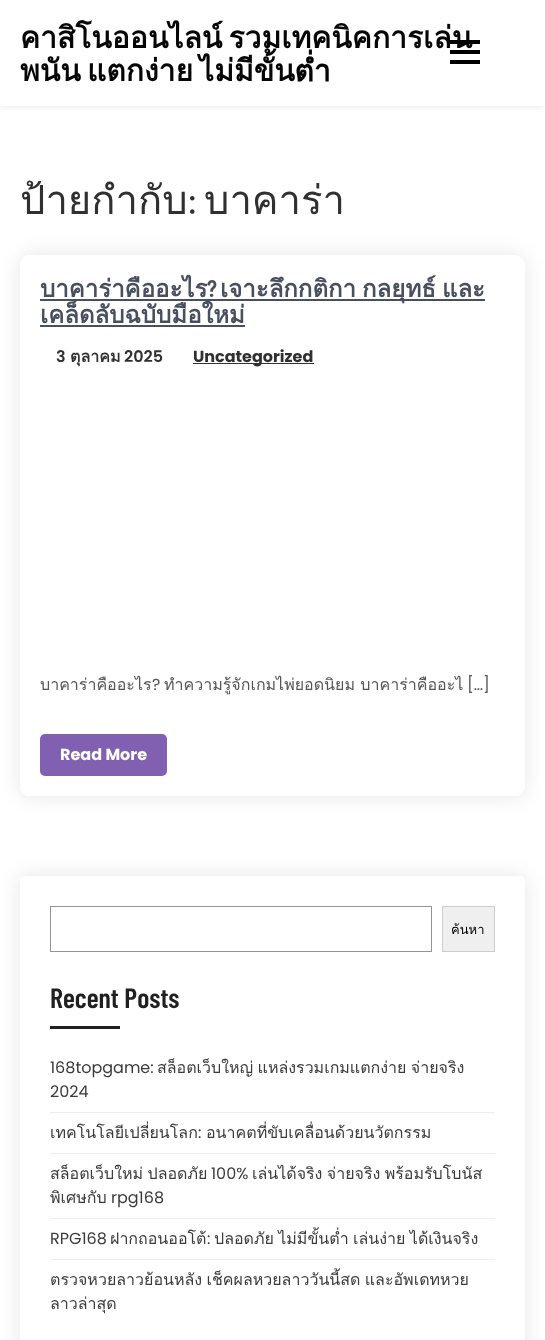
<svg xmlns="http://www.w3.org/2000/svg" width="545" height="1340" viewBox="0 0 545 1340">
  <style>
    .t1 { font: bold 30px Loma; fill: #060606; }
    .t2 { font: 40px Loma; fill: #303030; }
    .t3 { font: 40px Barlow Condensed; fill: #303030; }
    .t4 { font: bold 24px Loma; fill: #484f5e; }
    .t5 { font: 600 24px Barlow Condensed; fill: #484f5e; }
    .t6 { font: 600 16px Poppins; fill: #303030; }
    .t7 { font: bold 16px Loma; fill: #303030; }
    .t8 { font: bold 16px Poppins; fill: #303030; }
    .t9 { font: 16px Loma; fill: #555; }
    .t10 { font: 16px Poppins; fill: #555; }
    .t11 { font: bold 16px Poppins; fill: #fff; }
    .t12 { font: 13px Loma; fill: #000; }
    .t13 { font: 600 28px Barlow Condensed; fill: #202020; }
    .t14 { font: 16px Poppins; fill: #3b3b3b; }
    .t15 { font: 16px Loma; fill: #3b3b3b; }
  </style>
  <defs>
    <clipPath id="clip1"><rect x="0" y="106" width="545" height="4"/></clipPath>
    <clipPath id="clip2"><path d="M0 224H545V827H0ZM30 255H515C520.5 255 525 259.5 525 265V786C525 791.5 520.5 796 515 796H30C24.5 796 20 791.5 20 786V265C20 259.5 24.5 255 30 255Z" clip-rule="evenodd"/></clipPath>
    <clipPath id="clip3"><path d="M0 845H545V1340H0ZM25 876H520C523 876 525 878 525 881V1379C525 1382 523 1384 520 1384H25C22 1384 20 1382 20 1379V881C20 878 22 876 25 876Z" clip-rule="evenodd"/></clipPath>
  </defs>
  <rect width="100%" height="100%" fill="#fff"/>
  <g clip-path="url(#clip1)">
    <rect x="0" y="0" width="545" height="106" fill="#0000001a" filter="blur(5px)"/>
  </g>
  <text x="20" y="48" word-spacing="-4" class="t1">คาสิโนออนไลน์ รวมเทคนิคการเล่น</text>
  <text x="20" y="81" word-spacing="-4" class="t1">พนัน แตกง่าย ไม่มีขั้นต่ำ</text>
  <rect x="450" y="50" width="30" height="4" fill="#000"/>
  <rect x="450" y="40" width="30" height="4" fill="#000"/>
  <rect x="450" y="60" width="30" height="4" fill="#000"/>
  <text x="20" y="214" class="t2">ป้ายกำกับ</text>
  <text x="188" y="214" class="t3">:</text>
  <text x="204" y="214" class="t2">บาคาร่า</text>
  <g clip-path="url(#clip2)">
    <rect x="20" y="255" width="505" height="541" rx="10" fill="#0000001a" filter="blur(10px)"/>
  </g>
  <text x="40" y="297" class="t4">บาคาร่าคืออะไร</text>
  <text x="207" y="297" class="t5">?</text>
  <rect x="40" y="299" width="445" height="2" fill="#484f5e"/>
  <text x="220" y="297" word-spacing="-2" class="t4">เจาะลึกกติกา กลยุทธ์ และ</text>
  <text x="40" y="323" class="t4">เคล็ดลับฉบับมือใหม่</text>
  <rect x="40" y="325" width="205" height="2" fill="#484f5e"/>
  <text x="56" y="362" class="t6">3</text>
  <text x="70" y="362" class="t7">ตุลาคม</text>
  <text x="124" y="362" class="t6">2025</text>
  <rect x="193" y="363" width="121" height="1" fill="#333"/>
  <text x="193" y="362" class="t8">Uncategorized</text>
  <text x="40" y="690" class="t9">บาคาร่าคืออะไร</text>
  <text x="152" y="690" class="t10">?</text>
  <text x="164" y="690" class="t9">ทำความรู้จักเกมไพ่ยอดนิยม บาคาร่าคืออะไ</text>
  <text x="467" y="690" class="t10">[…]</text>
  <rect x="40" y="734" width="127" height="42" rx="5" fill="#8160b2"/>
  <text x="60" y="760" class="t11">Read More</text>
  <g clip-path="url(#clip3)">
    <rect x="20" y="876" width="505" height="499" rx="5" fill="#0000001a" filter="blur(10px)"/>
  </g>
  <rect x="50.5" y="906.5" width="381" height="45" fill="none" stroke="#949494"/>
  <rect x="442.5" y="906.5" width="52" height="45" fill="#efefef" stroke="#ccc"/>
  <text x="451" y="934" class="t12">ค้นหา</text>
  <text x="50" y="1008" class="t13">Recent Posts</text>
  <rect x="50" y="1026" width="70" height="3" fill="#202020"/>
  <rect x="50" y="1112" width="445" height="1" fill="#eee"/>
  <text x="50" y="1073" class="t14">168topgame:</text>
  <text x="157" y="1073" word-spacing="-1" class="t15">สล็อตเว็บใหญ่ แหล่งรวมเกมแตกง่าย จ่ายจริง</text>
  <text x="50" y="1097" class="t14">2024</text>
  <rect x="50" y="1153" width="445" height="1" fill="#eee"/>
  <text x="50" y="1138" class="t15">เทคโนโลยีเปลี่ยนโลก</text>
  <text x="198" y="1138" class="t14">:</text>
  <text x="206" y="1138" class="t15">อนาคตที่ขับเคลื่อนด้วยนวัตกรรม</text>
  <rect x="50" y="1218" width="445" height="1" fill="#eee"/>
  <text x="50" y="1179" word-spacing="-1" class="t15">สล็อตเว็บใหม่ ปลอดภัย</text>
  <text x="211" y="1179" class="t14">100%</text>
  <text x="252" y="1179" word-spacing="-1" class="t15">เล่นได้จริง จ่ายจริง พร้อมรับโบนัส</text>
  <text x="50" y="1203" class="t15">พิเศษกับ</text>
  <text x="111" y="1203" class="t14">rpg168</text>
  <rect x="50" y="1259" width="445" height="1" fill="#eee"/>
  <text x="50" y="1244" class="t14">RPG168</text>
  <text x="110" y="1244" class="t15">ฝากถอนออโต้</text>
  <text x="207" y="1244" class="t14">:</text>
  <text x="214" y="1244" word-spacing="-1" class="t15">ปลอดภัย ไม่มีขั้นต่ำ เล่นง่าย ได้เงินจริง</text>
  <text x="50" y="1285" word-spacing="-1" class="t15">ตรวจหวยลาวย้อนหลัง เช็คผลหวยลาววันนี้สด และอัพเดทหวย</text>
  <text x="50" y="1309" class="t15">ลาวล่าสุด</text>
</svg>
